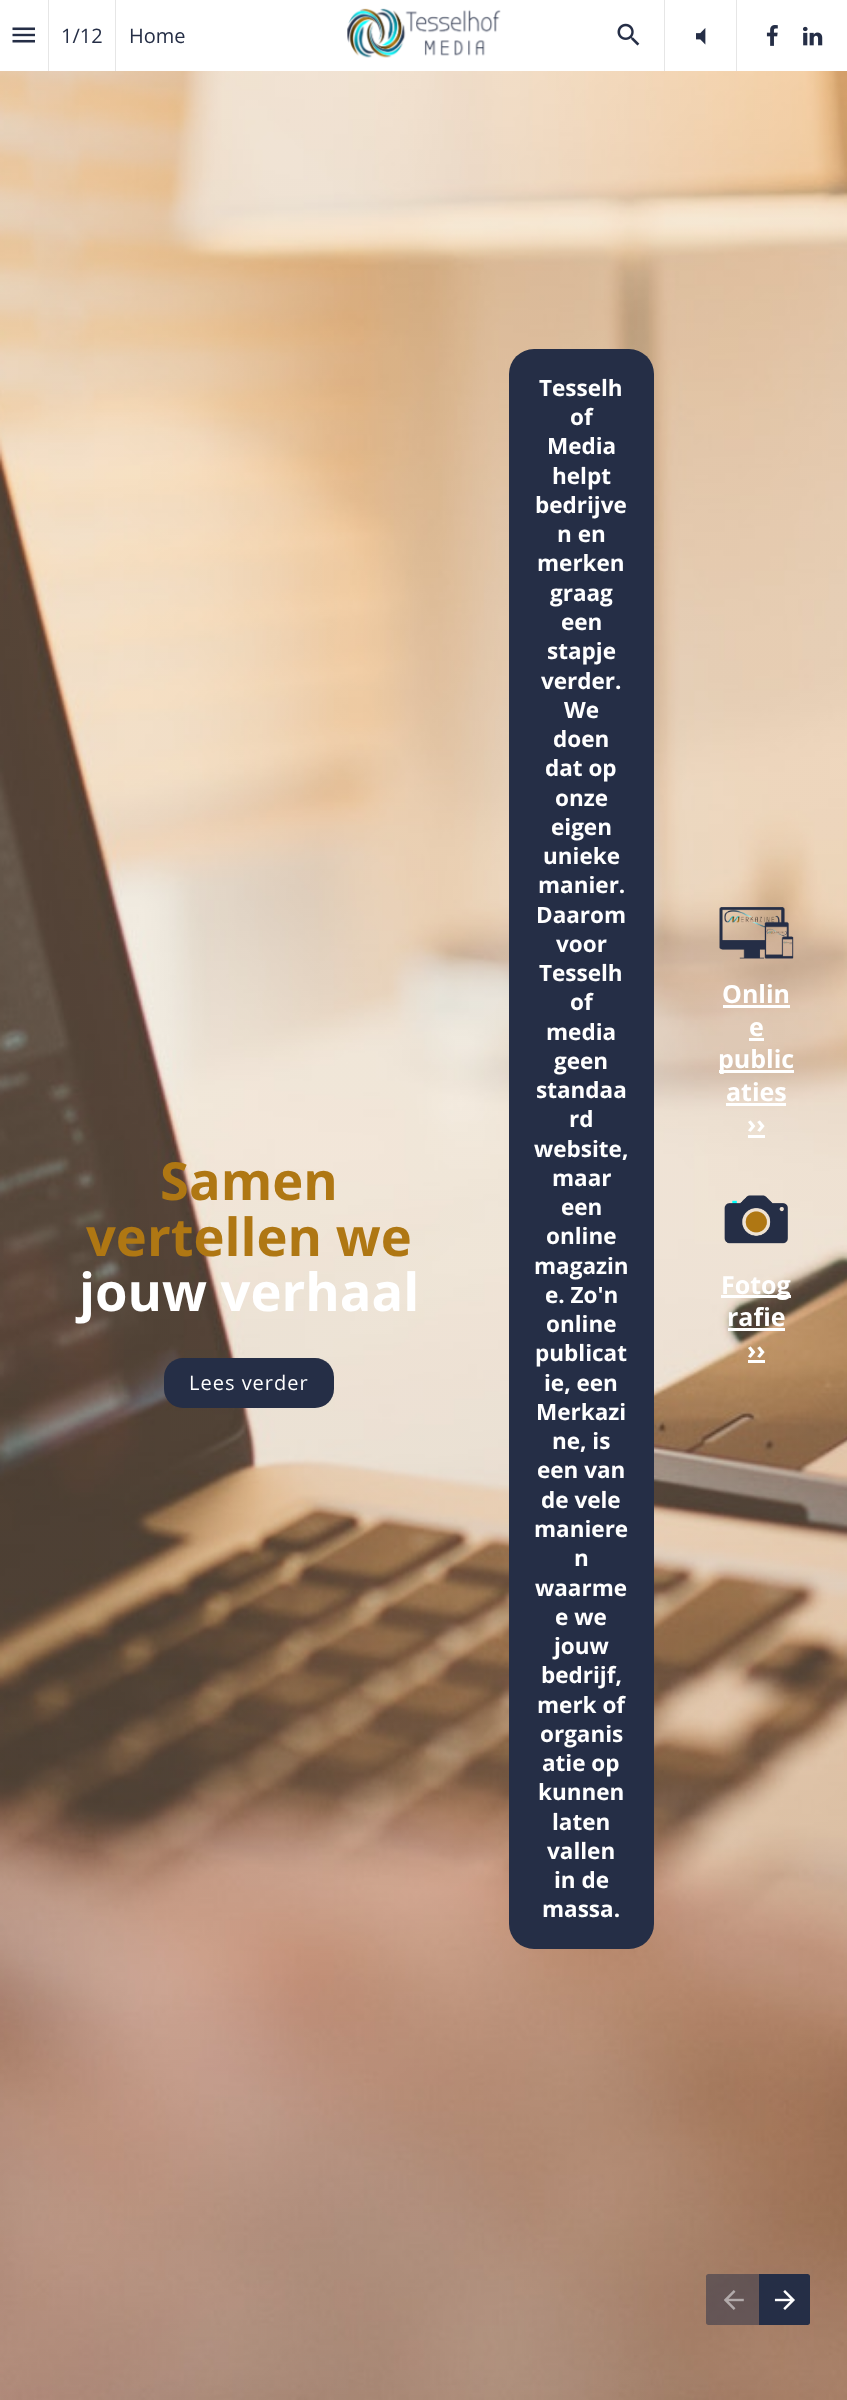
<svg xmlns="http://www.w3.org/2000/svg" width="847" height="2400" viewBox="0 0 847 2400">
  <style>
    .t1 { font: 20px Open Sans; fill: #252e46; }
    .t2 { font: bold 52.5px Open Sans; fill: #af7713; }
    .t3 { font: bold 52.5px Open Sans; fill: #fff; }
    .t4 { font: 20px Open Sans; letter-spacing: 1px; fill: #fff; }
    .t5 { font: bold 22.5px Open Sans; fill: #fff; }
    .t6 { font: bold 25px Open Sans; fill: #fff; }
  </style>
  <rect width="100%" height="100%" fill="#fff"/>
  <image x="12" y="27" width="23" height="16" href="images/1.png"/>
  <rect x="48" y="0" width="1" height="71" fill="#e6e6e6"/>
  <text x="61" y="43" class="t1">1/12</text>
  <rect x="115" y="0" width="1" height="71" fill="#e6e6e6"/>
  <text x="129" y="43" class="t1">Home</text>
  <image x="347" y="8" width="154" height="50" href="images/2.png"/>
  <image x="617" y="23" width="23" height="23" href="images/3.png"/>
  <rect x="664" y="0" width="1" height="71" fill="#e6e6e6"/>
  <image x="696" y="28" width="10" height="17" href="images/4.png"/>
  <rect x="736" y="0" width="1" height="71" fill="#e6e6e6"/>
  <image x="766" y="25" width="12" height="21" href="images/5.png"/>
  <image x="803" y="26" width="20" height="20" href="images/6.png"/>
  <image x="0" y="71" width="847" height="2329" href="images/9.png"/>
  <path d="M708.5 2274H759V2325H708.5C707 2325 706 2324 706 2322.5V2276.5C706 2275 707 2274 708.5 2274Z" fill="#252e4680"/>
  <image x="724" y="2290" width="20" height="20" href="images/7.png"/>
  <path d="M759 2274H807.5C809 2274 810 2275 810 2276.5V2322.5C810 2324 809 2325 807.5 2325H759Z" fill="#252e46"/>
  <image x="774" y="2290" width="21" height="20" href="images/8.png"/>
  <text x="160" y="1200" class="t2">Samen</text>
  <text x="86" y="1256" class="t2">vertellen we</text>
  <text x="79" y="1311" class="t3">jouw verhaal</text>
  <rect x="164" y="1358" width="170" height="50" rx="19" fill="#252e46"/>
  <text x="189" y="1390" class="t4">Lees verder</text>
  <rect x="509" y="349" width="145" height="1600" rx="25" fill="#252e46"/>
  <text x="539" y="396" class="t5">Tesselh</text>
  <text x="570" y="425" class="t5">of</text>
  <text x="547" y="454" class="t5">Media</text>
  <text x="552" y="484" class="t5">helpt</text>
  <text x="535" y="513" class="t5">bedrijve</text>
  <text x="557" y="542" class="t5">n en</text>
  <text x="537" y="571" class="t5">merken</text>
  <text x="550" y="601" class="t5">graag</text>
  <text x="561" y="630" class="t5">een</text>
  <text x="547" y="659" class="t5">stapje</text>
  <text x="541" y="689" class="t5">verder.</text>
  <text x="564" y="718" class="t5">We</text>
  <text x="553" y="747" class="t5">doen</text>
  <text x="545" y="776" class="t5">dat op</text>
  <text x="555" y="806" class="t5">onze</text>
  <text x="551" y="835" class="t5">eigen</text>
  <text x="543" y="864" class="t5">unieke</text>
  <text x="538" y="893" class="t5">manier.</text>
  <text x="536" y="923" class="t5">Daarom</text>
  <text x="556" y="952" class="t5">voor</text>
  <text x="539" y="981" class="t5">Tesselh</text>
  <text x="570" y="1010" class="t5">of</text>
  <text x="546" y="1040" class="t5">media</text>
  <text x="554" y="1069" class="t5">geen</text>
  <text x="536" y="1098" class="t5">standaa</text>
  <text x="569" y="1127" class="t5">rd</text>
  <text x="534" y="1157" class="t5">website,</text>
  <text x="552" y="1186" class="t5">maar</text>
  <text x="561" y="1215" class="t5">een</text>
  <text x="546" y="1244" class="t5">online</text>
  <text x="534" y="1274" class="t5">magazin</text>
  <text x="545" y="1303" class="t5">e. Zo'n</text>
  <text x="546" y="1332" class="t5">online</text>
  <text x="535" y="1361" class="t5">publicat</text>
  <text x="544" y="1391" class="t5">ie, een</text>
  <text x="536" y="1420" class="t5">Merkazi</text>
  <text x="552" y="1449" class="t5">ne, is</text>
  <text x="537" y="1478" class="t5">een van</text>
  <text x="541" y="1508" class="t5">de vele</text>
  <text x="534" y="1537" class="t5">maniere</text>
  <text x="574" y="1566" class="t5">n</text>
  <text x="535" y="1596" class="t5">waarme</text>
  <text x="555" y="1625" class="t5">e we</text>
  <text x="554" y="1654" class="t5">jouw</text>
  <text x="541" y="1683" class="t5">bedrijf,</text>
  <text x="537" y="1713" class="t5">merk of</text>
  <text x="540" y="1742" class="t5">organis</text>
  <text x="542" y="1771" class="t5">atie op</text>
  <text x="538" y="1800" class="t5">kunnen</text>
  <text x="552" y="1830" class="t5">laten</text>
  <text x="547" y="1859" class="t5">vallen</text>
  <text x="554" y="1888" class="t5">in de</text>
  <text x="542" y="1917" class="t5">massa.</text>
  <image x="719" y="907" width="75" height="52" href="images/10.png"/>
  <text x="722" y="1003" class="t6">Onlin</text>
  <rect x="723" y="1005" width="67" height="3" fill="#fff"/>
  <text x="749" y="1036" class="t6">e</text>
  <rect x="749" y="1038" width="15" height="3" fill="#fff"/>
  <rect x="719" y="1070" width="75" height="3" fill="#fff"/>
  <text x="718" y="1068" class="t6">public</text>
  <text x="726" y="1101" class="t6">aties</text>
  <rect x="726" y="1103" width="60" height="3" fill="#fff"/>
  <text x="747" y="1133" class="t6">››</text>
  <rect x="748" y="1135" width="17" height="3" fill="#fff"/>
  <image x="724" y="1195" width="64" height="49" href="images/11.png"/>
  <rect x="721" y="1295" width="70" height="3" fill="#fff"/>
  <text x="721" y="1294" class="t6">Fotog</text>
  <text x="727" y="1326" class="t6">rafie</text>
  <rect x="728" y="1328" width="57" height="3" fill="#fff"/>
  <text x="747" y="1359" class="t6">››</text>
  <rect x="748" y="1360" width="17" height="3" fill="#fff"/>
</svg>
